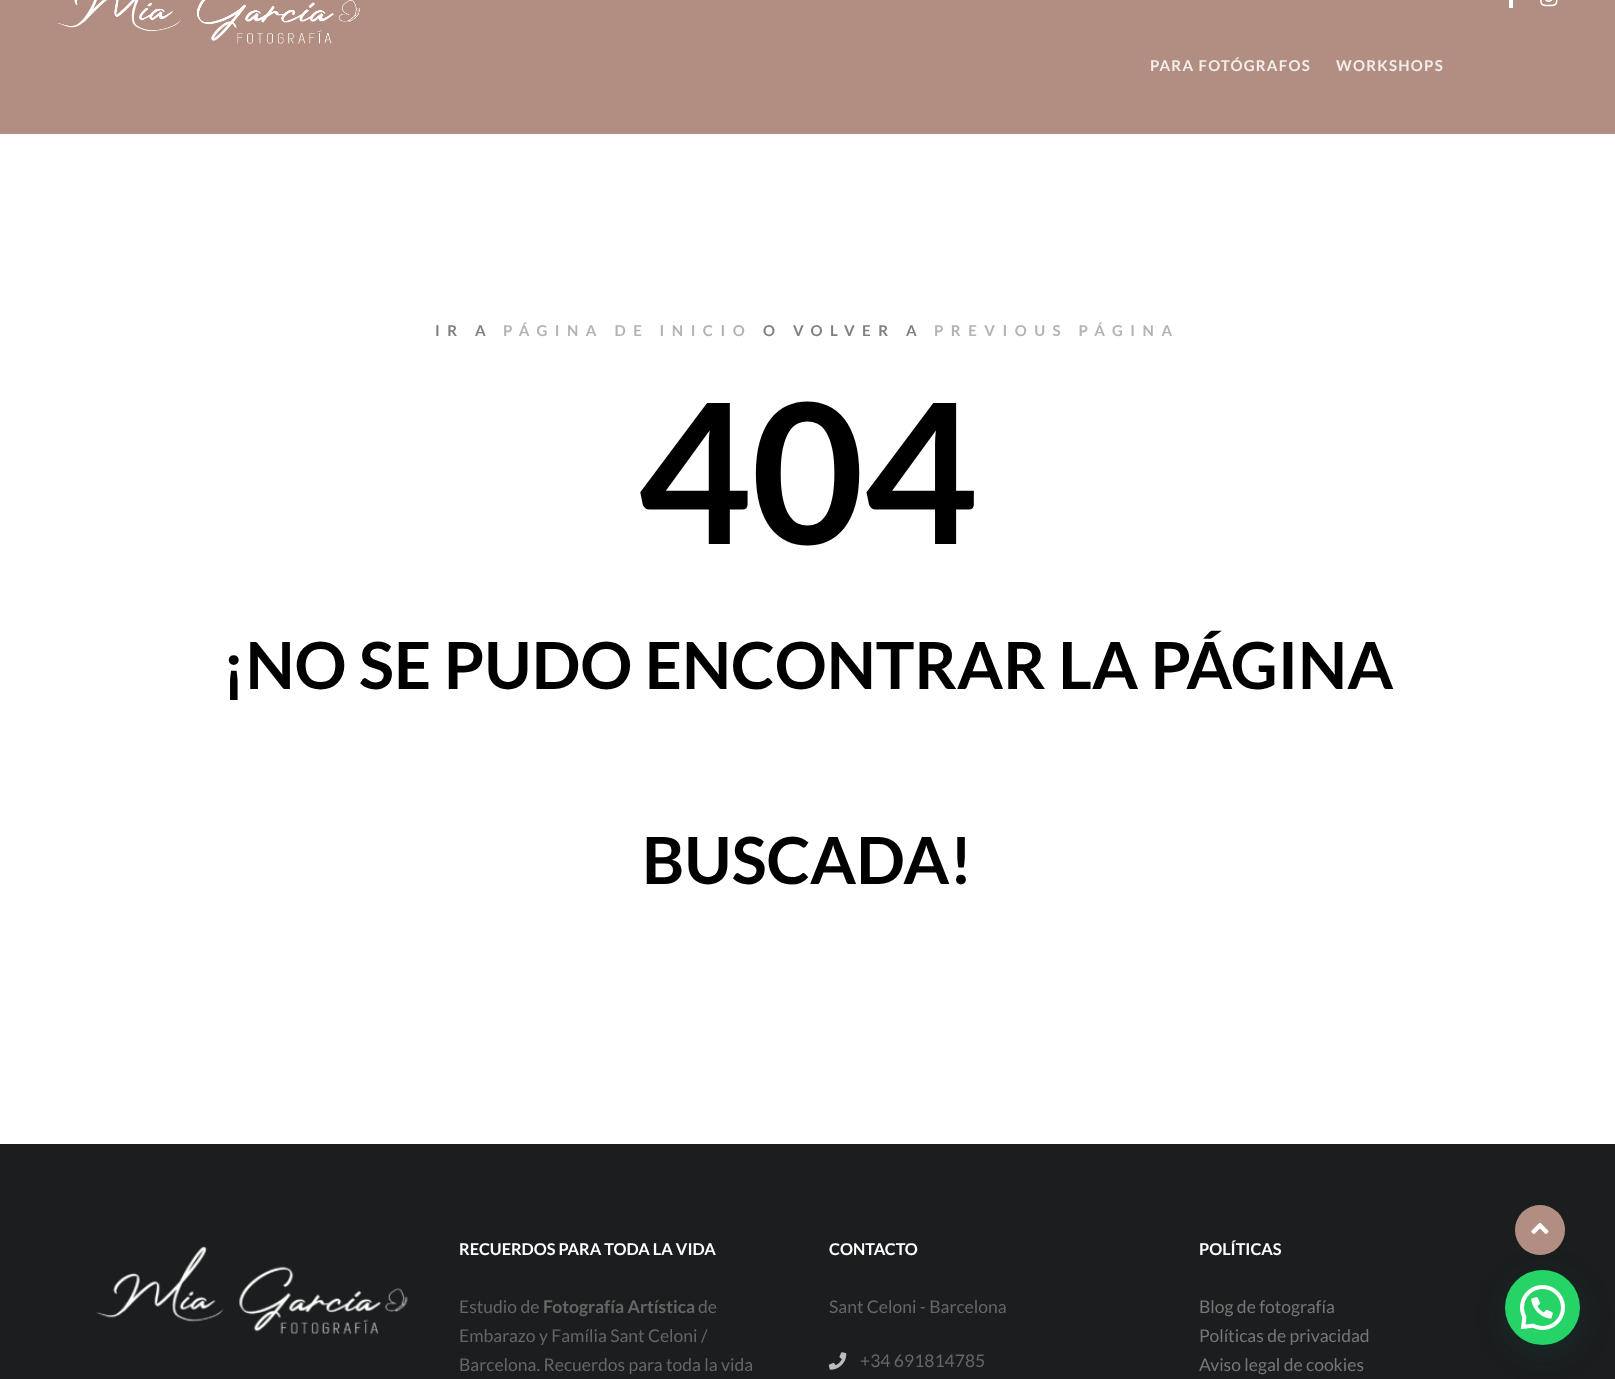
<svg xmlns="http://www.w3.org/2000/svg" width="1615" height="1379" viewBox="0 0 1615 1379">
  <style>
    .t1 { font: bold 15px Lato; letter-spacing: 1.25px; fill: #f3eeec; }
    .t2 { font: bold 15px Lato; letter-spacing: 7.5px; fill: #808080; }
    .t3 { font: bold 15px Lato; letter-spacing: 7.5px; fill: #b3b3b3; }
    .t4 { font: bold 195px Lato; fill: #000; }
    .t5 { font: bold 65px Lato; fill: #000; }
    .t6 { font: bold 16.25px Lato; fill: #fff; }
    .t7 { font: 17.5px Lato; fill: #666; }
    .t8 { font: bold 17.5px Lato; fill: #666; }
    .t9 { font: 17.5px Lato; fill: #777; }
  </style>
  <rect width="100%" height="100%" fill="#fff"/>
  <rect x="0" y="0" width="1615" height="134" fill="#b28e82"/>
  <image x="57" y="0" width="303" height="44" href="images/1.png"/>
  <rect x="1509" y="0" width="4" height="8" fill="#fff"/>
  <image x="1540" y="0" width="18" height="7" href="images/2.png"/>
  <text x="1150" y="71" class="t1">PARA FOTÓGRAFOS</text>
  <text x="1336" y="71" class="t1">WORKSHOPS</text>
  <text x="435" y="336" class="t2">IR A</text>
  <text x="503" y="336" class="t3">PÁGINA DE INICIO</text>
  <text x="763" y="336" class="t2">O VOLVER A</text>
  <text x="934" y="336" class="t3">PREVIOUS PÁGINA</text>
  <text x="638" y="544" class="t4">404</text>
  <text x="222" y="689" class="t5">¡NO SE PUDO ENCONTRAR LA PÁGINA</text>
  <text x="642" y="884" class="t5">BUSCADA!</text>
  <rect x="0" y="1144" width="1615" height="235" fill="#1b1d1e"/>
  <circle cx="1540" cy="1230" r="25" fill="#b28e82"/>
  <circle cx="1540" cy="1230" r="25" fill="#b28e8266"/>
  <image x="1531" y="1223" width="18" height="11" href="images/3.png"/>
  <image x="95" y="1246" width="314" height="88" href="images/4.png"/>
  <text x="459" y="1255" class="t6">RECUERDOS PARA TODA LA VIDA</text>
  <text x="459" y="1313" class="t7">Estudio de</text>
  <text x="543" y="1313" class="t8">Fotografía Artística</text>
  <text x="698" y="1313" class="t7">de</text>
  <text x="459" y="1342" class="t7">Embarazo y Família Sant Celoni /</text>
  <text x="459" y="1371" class="t7">Barcelona. Recuerdos para toda la vida</text>
  <text x="829" y="1255" class="t6">CONTACTO</text>
  <text x="829" y="1313" class="t7">Sant Celoni - Barcelona</text>
  <image x="828" y="1352" width="19" height="18" href="images/5.png"/>
  <text x="860" y="1367" class="t7">+34 691814785</text>
  <text x="1199" y="1255" class="t6">POLÍTICAS</text>
  <text x="1199" y="1313" class="t9">Blog de fotografía</text>
  <text x="1199" y="1342" class="t9">Políticas de privacidad</text>
  <text x="1199" y="1371" class="t9">Aviso legal de cookies</text>
  <rect x="1506" y="1278" width="75" height="75" rx="37.5" fill="#075e543d" filter="blur(15px)"/>
  <circle cx="1542.5" cy="1307.5" r="37.5" fill="#25d366"/>
  <image x="1520" y="1285" width="45" height="45" href="images/6.png"/>
</svg>
